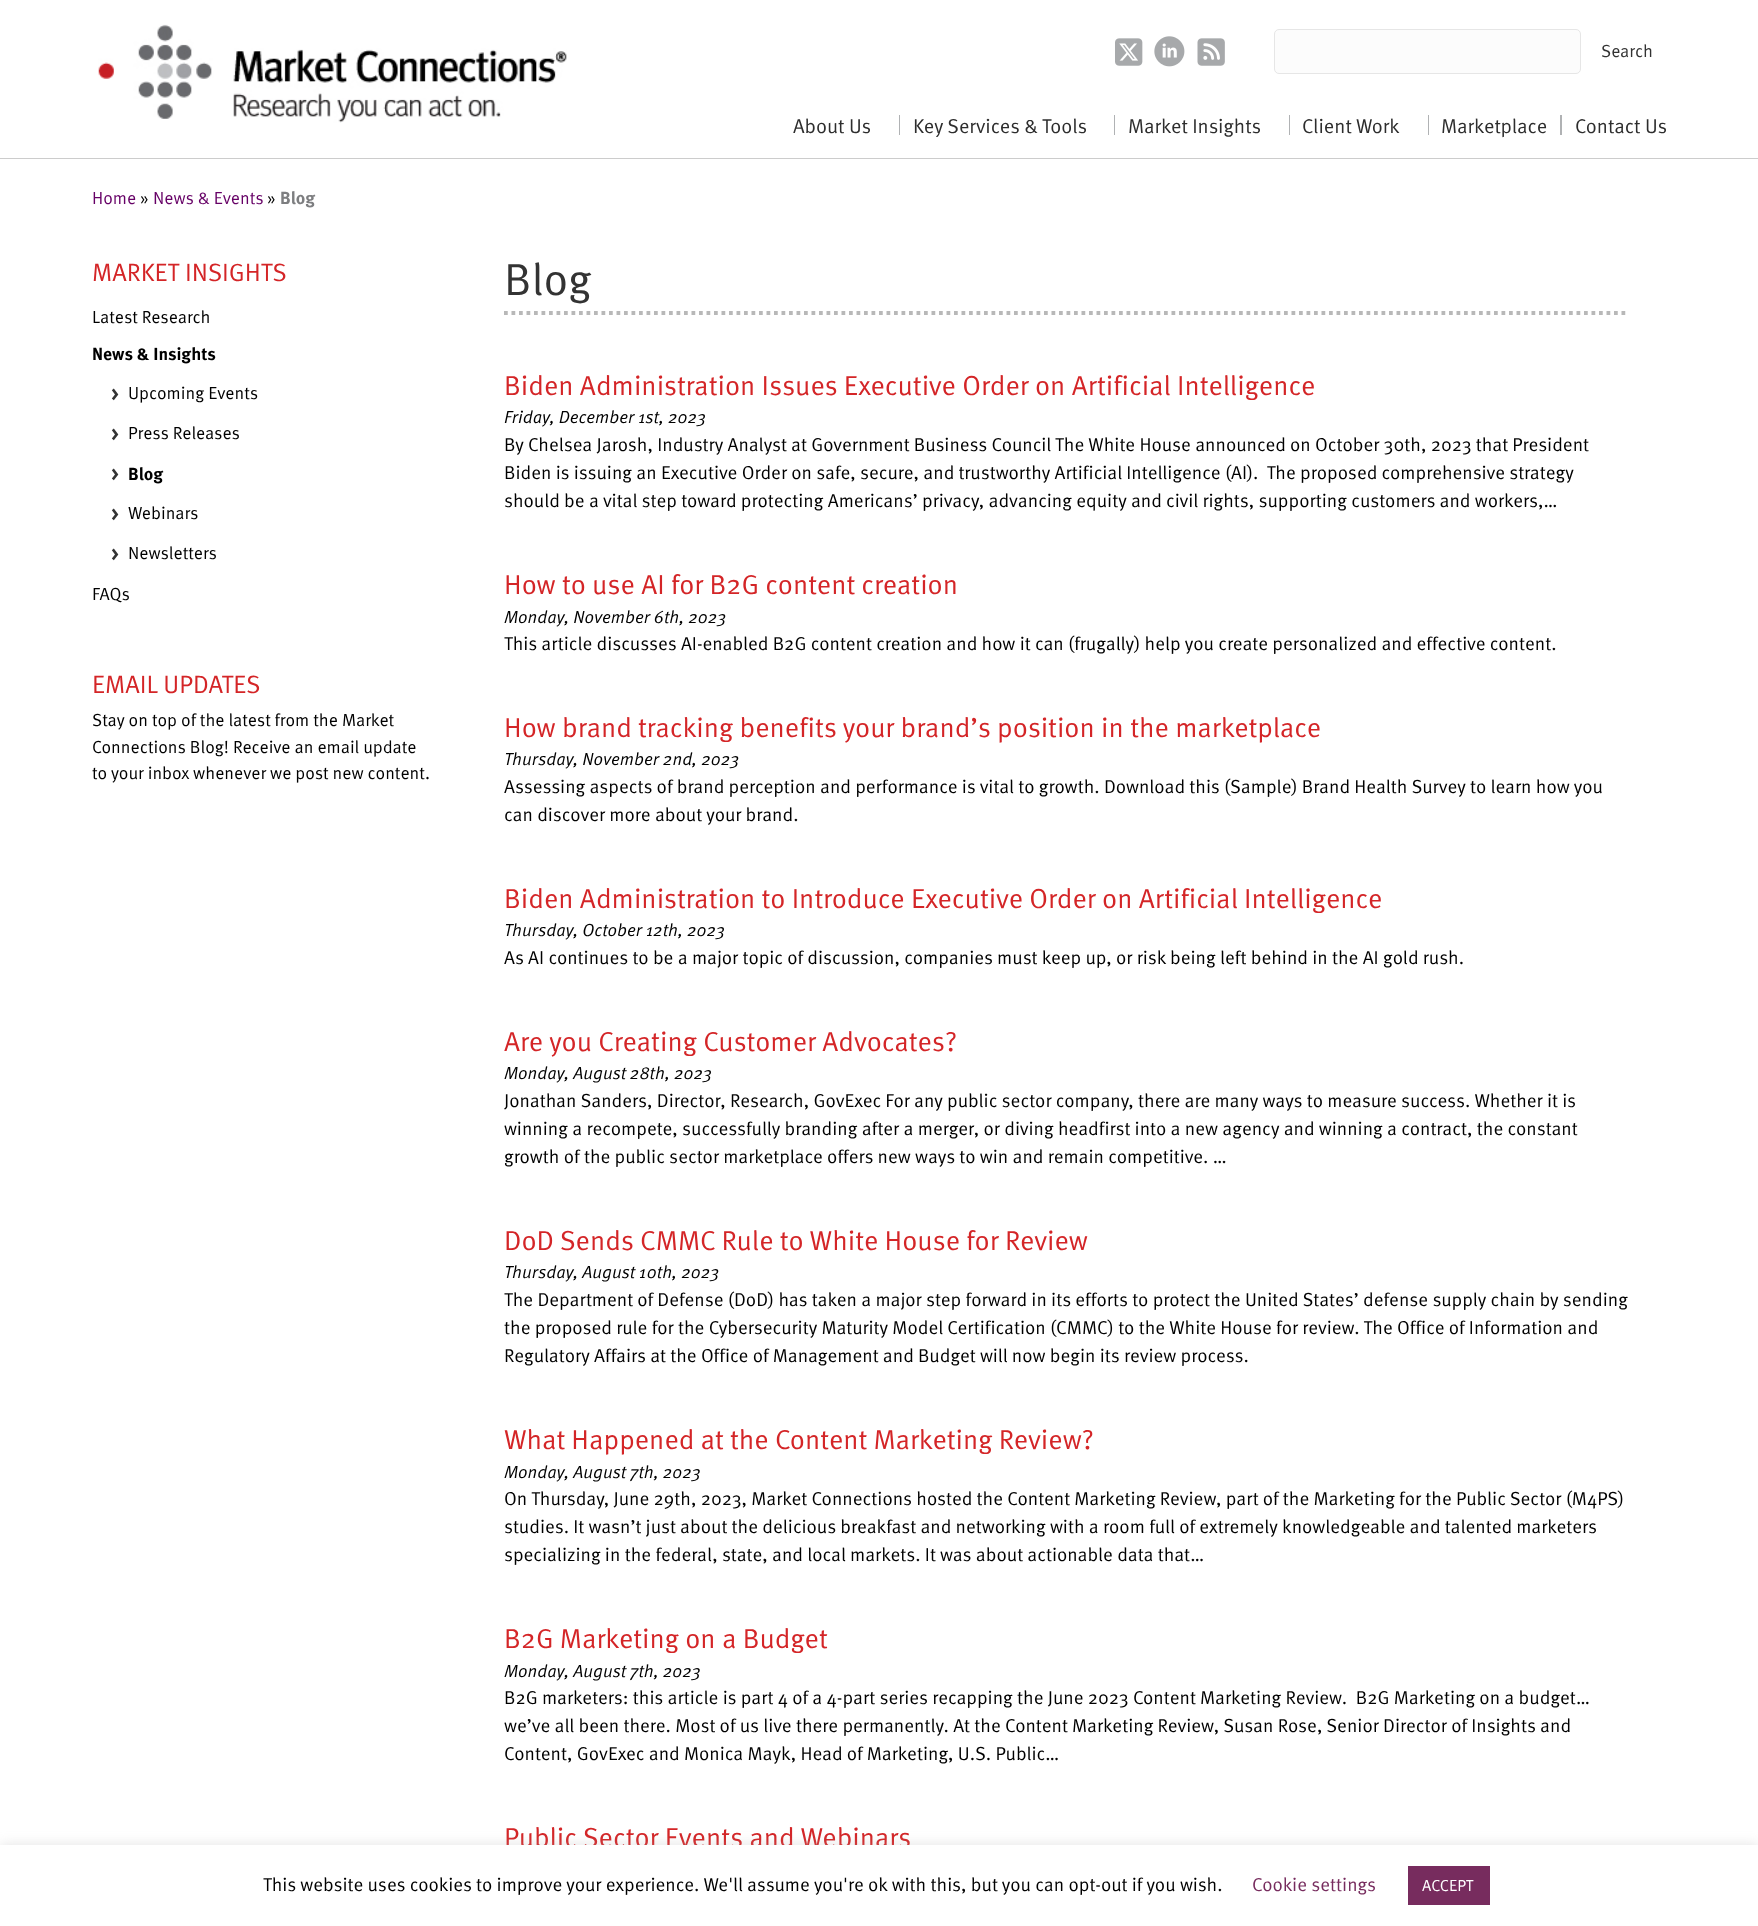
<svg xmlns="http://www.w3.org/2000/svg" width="1758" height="1926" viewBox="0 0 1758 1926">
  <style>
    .t1 { font: 17.5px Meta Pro; fill: #333; }
    .t2 { font: 20px Meta Pro; fill: #2d2d2d; }
    .t3 { font: 17.5px Meta Pro; fill: #606; }
    .t4 { font: 17.5px Meta Pro; fill: #000; }
    .t5 { font: bold 17.5px Meta Pro; fill: #7d7e80; }
    .t6 { font: 25px Meta Pro; fill: #d42527; }
    .t7 { font: bold 17.5px Meta Pro; fill: #000; }
    .t8 { font: bold 18.75px Meta Pro; fill: #333; }
    .t9 { font: 45px Meta Pro; fill: #333; }
    .t10 { font: 27.5px Meta Pro; fill: #d42527; }
    .t11 { font: italic 17.5px Meta Pro; fill: #000; }
    .t12 { font: 18.75px Meta Pro; fill: #000; }
    .t13 { font: 18.75px Meta Pro; fill: #772c5e; }
    .t14 { font: 16px Meta Pro; fill: #fff; }
  </style>
  <rect width="100%" height="100%" fill="#fff"/>
  <rect x="0" y="158" width="1758" height="1" fill="#ccc"/>
  <image x="98" y="24" width="469" height="99" href="images/1.png"/>
  <image x="1115" y="38" width="28" height="28" href="images/2.png"/>
  <image x="1154" y="36" width="31" height="31" href="images/3.png"/>
  <image x="1197" y="38" width="28" height="28" href="images/4.png"/>
  <rect x="1274.5" y="29.5" width="306" height="44" rx="4.5" fill="#fcfcfc" stroke="#e6e6e6"/>
  <text x="1601" y="57" class="t1">Search</text>
  <text x="793" y="133" class="t2">About Us</text>
  <rect x="899" y="115" width="1" height="20" fill="#b0b2b4"/>
  <text x="913" y="133" class="t2">Key Services &amp; Tools</text>
  <rect x="1114" y="115" width="1" height="20" fill="#b0b2b4"/>
  <text x="1128" y="133" class="t2">Market Insights</text>
  <rect x="1289" y="115" width="1" height="20" fill="#b0b2b4"/>
  <text x="1302" y="133" class="t2">Client Work</text>
  <rect x="1428" y="115" width="1" height="20" fill="#b0b2b4"/>
  <rect x="1560" y="115" width="2" height="20" fill="#b0b2b4"/>
  <text x="1441" y="133" class="t2">Marketplace</text>
  <text x="1575" y="133" class="t2">Contact Us</text>
  <text x="92" y="204" class="t3">Home</text>
  <text x="140" y="204" class="t4">»</text>
  <text x="153" y="204" class="t3">News &amp; Events</text>
  <text x="267" y="204" class="t4">»</text>
  <text x="280" y="204" class="t5">Blog</text>
  <text x="92" y="281" class="t6">MARKET INSIGHTS</text>
  <text x="92" y="323" class="t4">Latest Research</text>
  <text x="92" y="360" class="t7">News &amp; Insights</text>
  <text x="111" y="400" class="t8">&gt;</text>
  <text x="128" y="399" class="t4">Upcoming Events</text>
  <text x="111" y="440" class="t8">&gt;</text>
  <text x="128" y="439" class="t4">Press Releases</text>
  <text x="111" y="480" class="t8">&gt;</text>
  <text x="128" y="480" class="t7">Blog</text>
  <text x="111" y="520" class="t8">&gt;</text>
  <text x="128" y="519" class="t4">Webinars</text>
  <text x="111" y="560" class="t8">&gt;</text>
  <text x="128" y="559" class="t4">Newsletters</text>
  <text x="92" y="600" class="t4">FAQs</text>
  <text x="92" y="693" class="t6">EMAIL UPDATES</text>
  <text x="92" y="726" class="t4">Stay on top of the latest from the Market</text>
  <text x="92" y="753" class="t4">Connections Blog! Receive an email update</text>
  <text x="92" y="779" class="t4">to your inbox whenever we post new content.</text>
  <path d="M504 313H1629" fill="none" stroke="#b8b8b8" stroke-width="3.8" stroke-dasharray="3.75 3.75"/>
  <text x="504" y="295" class="t9">Blog</text>
  <text x="504" y="395" class="t10">Biden Administration Issues Executive Order on Artificial Intelligence</text>
  <text x="504" y="423" class="t11">Friday, December 1st, 2023</text>
  <text x="504" y="451" class="t12">By Chelsea Jarosh, Industry Analyst at Government Business Council The White House announced on October 30th, 2023 that President</text>
  <text x="504" y="479" class="t12" xml:space="preserve">Biden is issuing an Executive Order on safe, secure, and trustworthy Artificial Intelligence (AI).  The proposed comprehensive strategy</text>
  <text x="504" y="507" class="t12">should be a vital step toward protecting Americans’ privacy, advancing equity and civil rights, supporting customers and workers,…</text>
  <text x="504" y="594" class="t10">How to use AI for B2G content creation</text>
  <text x="504" y="623" class="t11">Monday, November 6th, 2023</text>
  <text x="504" y="650" class="t12">This article discusses AI-enabled B2G content creation and how it can (frugally) help you create personalized and effective content.</text>
  <text x="504" y="737" class="t10">How brand tracking benefits your brand’s position in the marketplace</text>
  <text x="504" y="765" class="t11">Thursday, November 2nd, 2023</text>
  <text x="504" y="793" class="t12">Assessing aspects of brand perception and performance is vital to growth. Download this (Sample) Brand Health Survey to learn how you</text>
  <text x="504" y="821" class="t12">can discover more about your brand.</text>
  <text x="504" y="908" class="t10">Biden Administration to Introduce Executive Order on Artificial Intelligence</text>
  <text x="504" y="936" class="t11">Thursday, October 12th, 2023</text>
  <text x="504" y="964" class="t12">As AI continues to be a major topic of discussion, companies must keep up, or risk being left behind in the AI gold rush.</text>
  <text x="504" y="1051" class="t10">Are you Creating Customer Advocates?</text>
  <text x="504" y="1079" class="t11">Monday, August 28th, 2023</text>
  <text x="504" y="1107" class="t12">Jonathan Sanders, Director, Research, GovExec For any public sector company, there are many ways to measure success. Whether it is</text>
  <text x="504" y="1135" class="t12">winning a recompete, successfully branding after a merger, or diving headfirst into a new agency and winning a contract, the constant</text>
  <text x="504" y="1163" class="t12">growth of the public sector marketplace offers new ways to win and remain competitive. …</text>
  <text x="504" y="1250" class="t10">DoD Sends CMMC Rule to White House for Review</text>
  <text x="504" y="1278" class="t11">Thursday, August 10th, 2023</text>
  <text x="504" y="1306" class="t12">The Department of Defense (DoD) has taken a major step forward in its efforts to protect the United States’ defense supply chain by sending</text>
  <text x="504" y="1334" class="t12">the proposed rule for the Cybersecurity Maturity Model Certification (CMMC) to the White House for review. The Office of Information and</text>
  <text x="504" y="1362" class="t12">Regulatory Affairs at the Office of Management and Budget will now begin its review process.</text>
  <text x="504" y="1449" class="t10">What Happened at the Content Marketing Review?</text>
  <text x="504" y="1478" class="t11">Monday, August 7th, 2023</text>
  <text x="504" y="1505" class="t12">On Thursday, June 29th, 2023, Market Connections hosted the Content Marketing Review, part of the Marketing for the Public Sector (M4PS)</text>
  <text x="504" y="1533" class="t12">studies. It wasn’t just about the delicious breakfast and networking with a room full of extremely knowledgeable and talented marketers</text>
  <text x="504" y="1561" class="t12">specializing in the federal, state, and local markets. It was about actionable data that…</text>
  <text x="504" y="1648" class="t10">B2G Marketing on a Budget</text>
  <text x="504" y="1677" class="t11">Monday, August 7th, 2023</text>
  <text x="504" y="1704" class="t12" xml:space="preserve">B2G marketers: this article is part 4 of a 4-part series recapping the June 2023 Content Marketing Review.  B2G Marketing on a budget…</text>
  <text x="504" y="1732" class="t12">we’ve all been there. Most of us live there permanently. At the Content Marketing Review, Susan Rose, Senior Director of Insights and</text>
  <text x="504" y="1760" class="t12">Content, GovExec and Monica Mayk, Head of Marketing, U.S. Public…</text>
  <text x="504" y="1847" class="t10">Public Sector Events and Webinars</text>
  <rect x="0" y="1844" width="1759" height="81" fill="#acabab4d" filter="blur(6px)"/>
  <rect x="0" y="1845" width="1758" height="81" fill="#fff"/>
  <text x="263" y="1891" class="t12">This website uses cookies to improve your experience. We'll assume you're ok with this, but you can opt-out if you wish.</text>
  <text x="1252" y="1891" class="t13">Cookie settings</text>
  <rect x="1408" y="1866" width="82" height="39" fill="#772c5e"/>
  <text x="1422" y="1891" class="t14">ACCEPT</text>
</svg>
